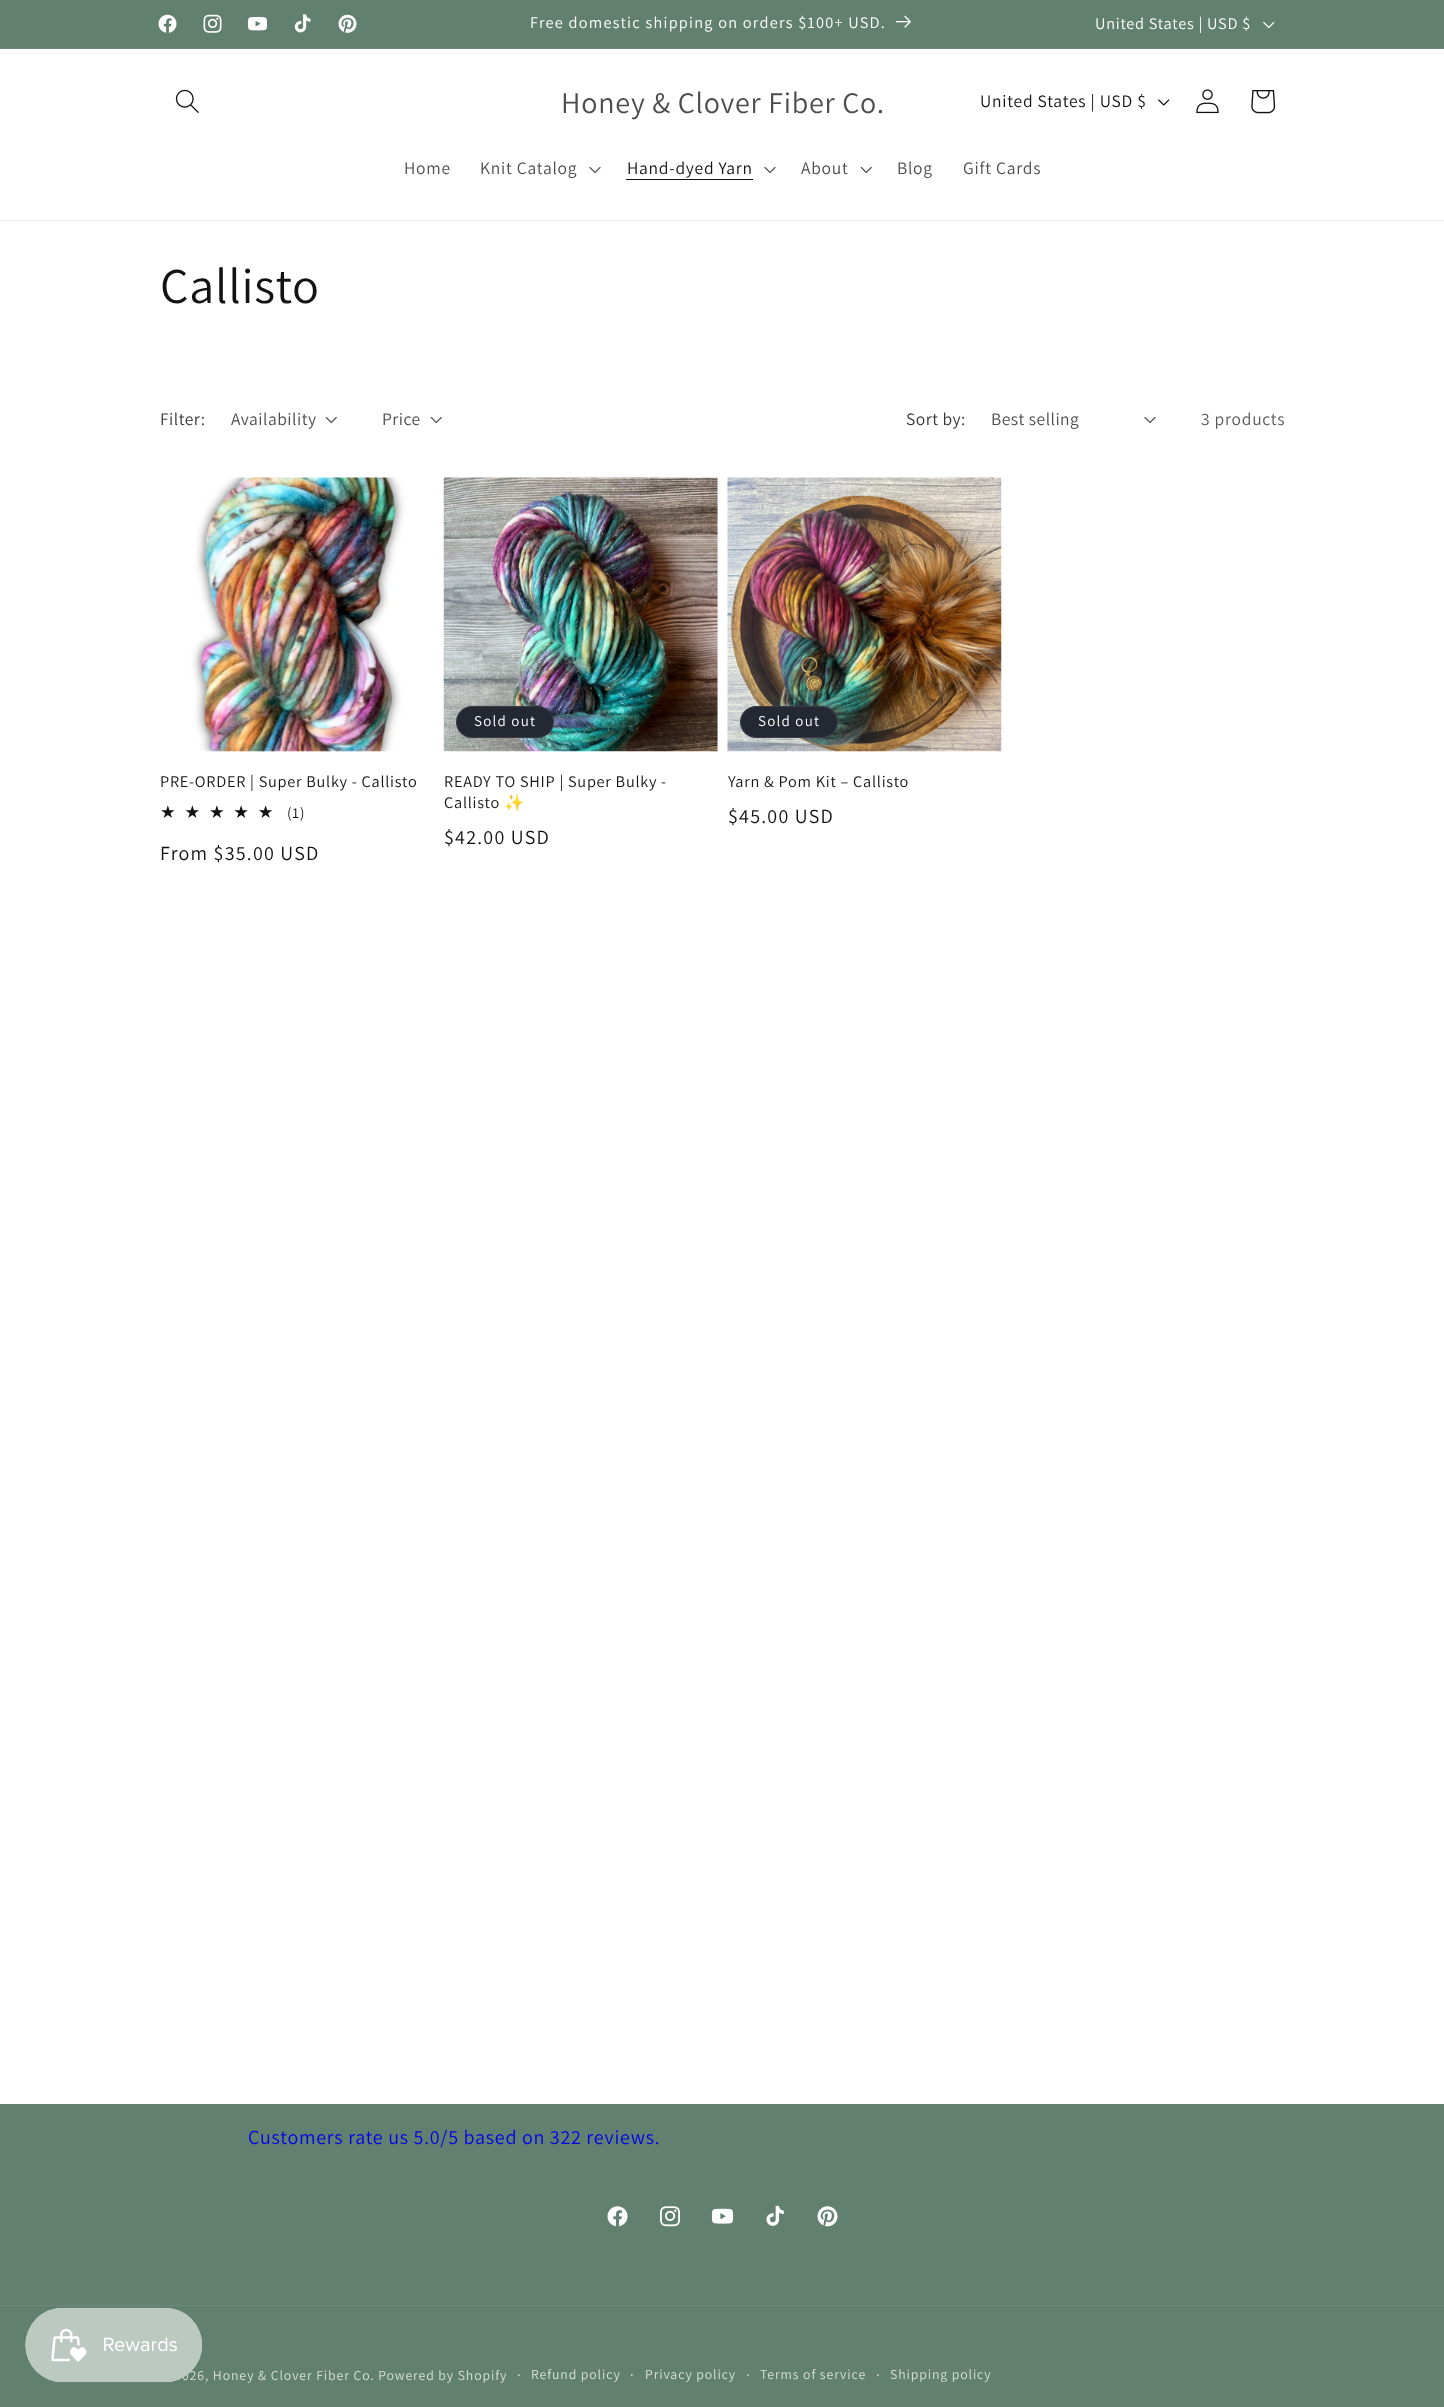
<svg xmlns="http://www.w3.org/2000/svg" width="1444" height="2407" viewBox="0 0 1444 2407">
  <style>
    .t1 { font: 16.25px Assistant; letter-spacing: 1.25px; fill: #fff; }
    .t2 { font: 16.25px Assistant; letter-spacing: 0.75px; fill: #fff; }
    .t3 { font: 30px Assistant; letter-spacing: 0.75px; fill: #4d4d4d; }
    .t4 { font: 17.5px Assistant; letter-spacing: 0.75px; fill: #121212; }
    .t5 { font: 17.5px Assistant; letter-spacing: 0.75px; fill: #4d4d4d; }
    .t6 { font: 50px Assistant; letter-spacing: 0.75px; fill: #121212; }
    .t7 { font: 17.5px Assistant; letter-spacing: 0.5px; fill: #363636; }
    .t8 { font: 17.5px Assistant; letter-spacing: 0.5px; fill: #4d4d4d; }
    .t9 { font: 17.5px Assistant; letter-spacing: 0.75px; fill: #595959; }
    .t10 { font: 16.25px Assistant; letter-spacing: 0.75px; fill: #121212; }
    .t11 { font: 17.5px DejaVu Sans; letter-spacing: 8.75px; fill: url(#g1); }
    .t12 { font: 15px Assistant; letter-spacing: 0.9px; fill: #121212; }
    .t13 { font: 20px Assistant; letter-spacing: 1.25px; fill: #121212; }
    .t14 { font: 15px Assistant; letter-spacing: 1.25px; fill: #fff; }
    .t15 { font: 16.25px Noto Color Emoji; letter-spacing: 0.75px; fill: #121212; }
    .t16 { font: 13.75px Assistant; letter-spacing: 0.9px; fill: #d8dfdb; }
    .t17 { font: 20px Assistant; letter-spacing: 0.75px; fill: #00e; }
    .t18 { font: 15px Assistant; letter-spacing: 0.9px; fill: #d8dfdb; }
  </style>
  <defs>
    <linearGradient id="g1" gradientUnits="userSpaceOnUse" x1="160" y1="813" x2="282" y2="813"><stop offset="1" stop-color="#121212"/><stop offset="1" stop-color="#dbdbdb"/></linearGradient>
  </defs>
  <rect width="100%" height="100%" fill="#fff"/>
  <rect x="0" y="0" width="1444" height="48" fill="#62806f"/>
  <rect x="0" y="48" width="1444" height="1" fill="#6f8a7b"/>
  <image x="158" y="14" width="19" height="19" href="images/1.png"/>
  <image x="203" y="14" width="19" height="19" href="images/2.png"/>
  <image x="247" y="17" width="21" height="14" href="images/3.png"/>
  <image x="294" y="14" width="17" height="19" href="images/4.png"/>
  <image x="338" y="14" width="19" height="19" href="images/5.png"/>
  <text x="530" y="28" class="t1">Free domestic shipping on orders $100+ USD.</text>
  <image x="896" y="15" width="15" height="13" href="images/6.png"/>
  <text x="1095" y="29" class="t2">United States | USD $</text>
  <image x="1263" y="21" width="12" height="8" href="images/7.png"/>
  <rect x="0" y="220" width="1444" height="1" fill="#ececec"/>
  <image x="175" y="89" width="24" height="24" href="images/8.png"/>
  <text x="561" y="113" class="t3">Honey &amp; Clover Fiber Co.</text>
  <text x="980" y="107" class="t4">United States | USD $</text>
  <image x="1158" y="99" width="12" height="7" href="images/9.png"/>
  <image x="1196" y="89" width="23" height="25" href="images/10.png"/>
  <image x="1251" y="90" width="25" height="24" href="images/11.png"/>
  <text x="404" y="174" class="t5">Home</text>
  <text x="480" y="174" class="t5">Knit Catalog</text>
  <image x="589" y="167" width="12" height="6" href="images/12.png"/>
  <text x="627" y="174" class="t4">Hand-dyed Yarn</text>
  <rect x="626" y="179" width="127" height="1" fill="#121212"/>
  <image x="764" y="167" width="12" height="6" href="images/12.png"/>
  <text x="801" y="174" class="t5">About</text>
  <image x="860" y="166" width="12" height="8" href="images/13.png"/>
  <text x="897" y="174" class="t5">Blog</text>
  <text x="963" y="174" class="t5">Gift Cards</text>
  <text x="160" y="303" class="t6">Callisto</text>
  <text x="160" y="425" class="t7">Filter:</text>
  <text x="231" y="425" class="t8">Availability</text>
  <image x="325" y="416" width="12" height="8" href="images/13.png"/>
  <text x="382" y="425" class="t8">Price</text>
  <image x="430" y="416" width="12" height="8" href="images/13.png"/>
  <text x="906" y="425" class="t7">Sort by:</text>
  <text x="991" y="425" class="t8">Best selling</text>
  <image x="1144" y="417" width="12" height="6" href="images/12.png"/>
  <text x="1201" y="425" class="t9">3 products</text>
  <image x="160" y="477" width="274" height="275" href="images/14.png"/>
  <text x="160" y="787" class="t10">PRE-ORDER | Super Bulky - Callisto</text>
  <text x="160" y="818" class="t11">★★★★★</text>
  <text x="287" y="818" class="t12">(1)</text>
  <text x="160" y="860" class="t13">From $35.00 USD</text>
  <rect x="717" y="478" width="1" height="273" fill="#f3f3f3"/>
  <image x="443" y="477" width="275" height="275" href="images/15.png"/>
  <rect x="456" y="706" width="98" height="32" rx="16" fill="#242833"/>
  <rect x="456.5" y="706.5" width="97" height="31" rx="15.5" fill="none" stroke="#ffffff1a"/>
  <text x="474" y="726" class="t14">Sold out</text>
  <text x="444" y="787" class="t10">READY TO SHIP | Super Bulky -</text>
  <text x="444" y="808" class="t10">Callisto</text>
  <text x="504" y="808" class="t15">✨</text>
  <text x="444" y="844" class="t13">$42.00 USD</text>
  <image x="727" y="477" width="275" height="275" href="images/16.png"/>
  <rect x="740" y="706" width="98" height="32" rx="16" fill="#242833"/>
  <rect x="740.5" y="706.5" width="97" height="31" rx="15.5" fill="none" stroke="#ffffff1a"/>
  <text x="758" y="726" class="t14">Sold out</text>
  <text x="728" y="787" class="t10">Yarn &amp; Pom Kit – Callisto</text>
  <text x="728" y="823" class="t13">$45.00 USD</text>
  <rect x="0" y="2104" width="1444" height="303" fill="#62806f"/>
  <text x="182" y="2380" class="t16">026, Honey &amp; Clover Fiber Co. Powered by Shopify</text>
  <image x="25" y="2307" width="178" height="76" href="images/17.png"/>
  <text x="248" y="2144" class="t17">Customers rate us 5.0/5 based on 322 reviews.</text>
  <image x="607" y="2206" width="21" height="21" href="images/18.png"/>
  <image x="660" y="2206" width="20" height="21" href="images/19.png"/>
  <image x="711" y="2208" width="23" height="16" href="images/20.png"/>
  <image x="766" y="2205" width="18" height="21" href="images/21.png"/>
  <image x="817" y="2206" width="21" height="21" href="images/22.png"/>
  <rect x="0" y="2305" width="1444" height="1" fill="#6f8a7b"/>
  <text x="517" y="2380" class="t18">·</text>
  <text x="531" y="2379" class="t16">Refund policy</text>
  <text x="630" y="2380" class="t18">·</text>
  <text x="645" y="2379" class="t16">Privacy policy</text>
  <text x="746" y="2380" class="t18">·</text>
  <text x="760" y="2379" class="t16">Terms of service</text>
  <text x="876" y="2380" class="t18">·</text>
  <text x="890" y="2379" class="t16">Shipping policy</text>
</svg>
